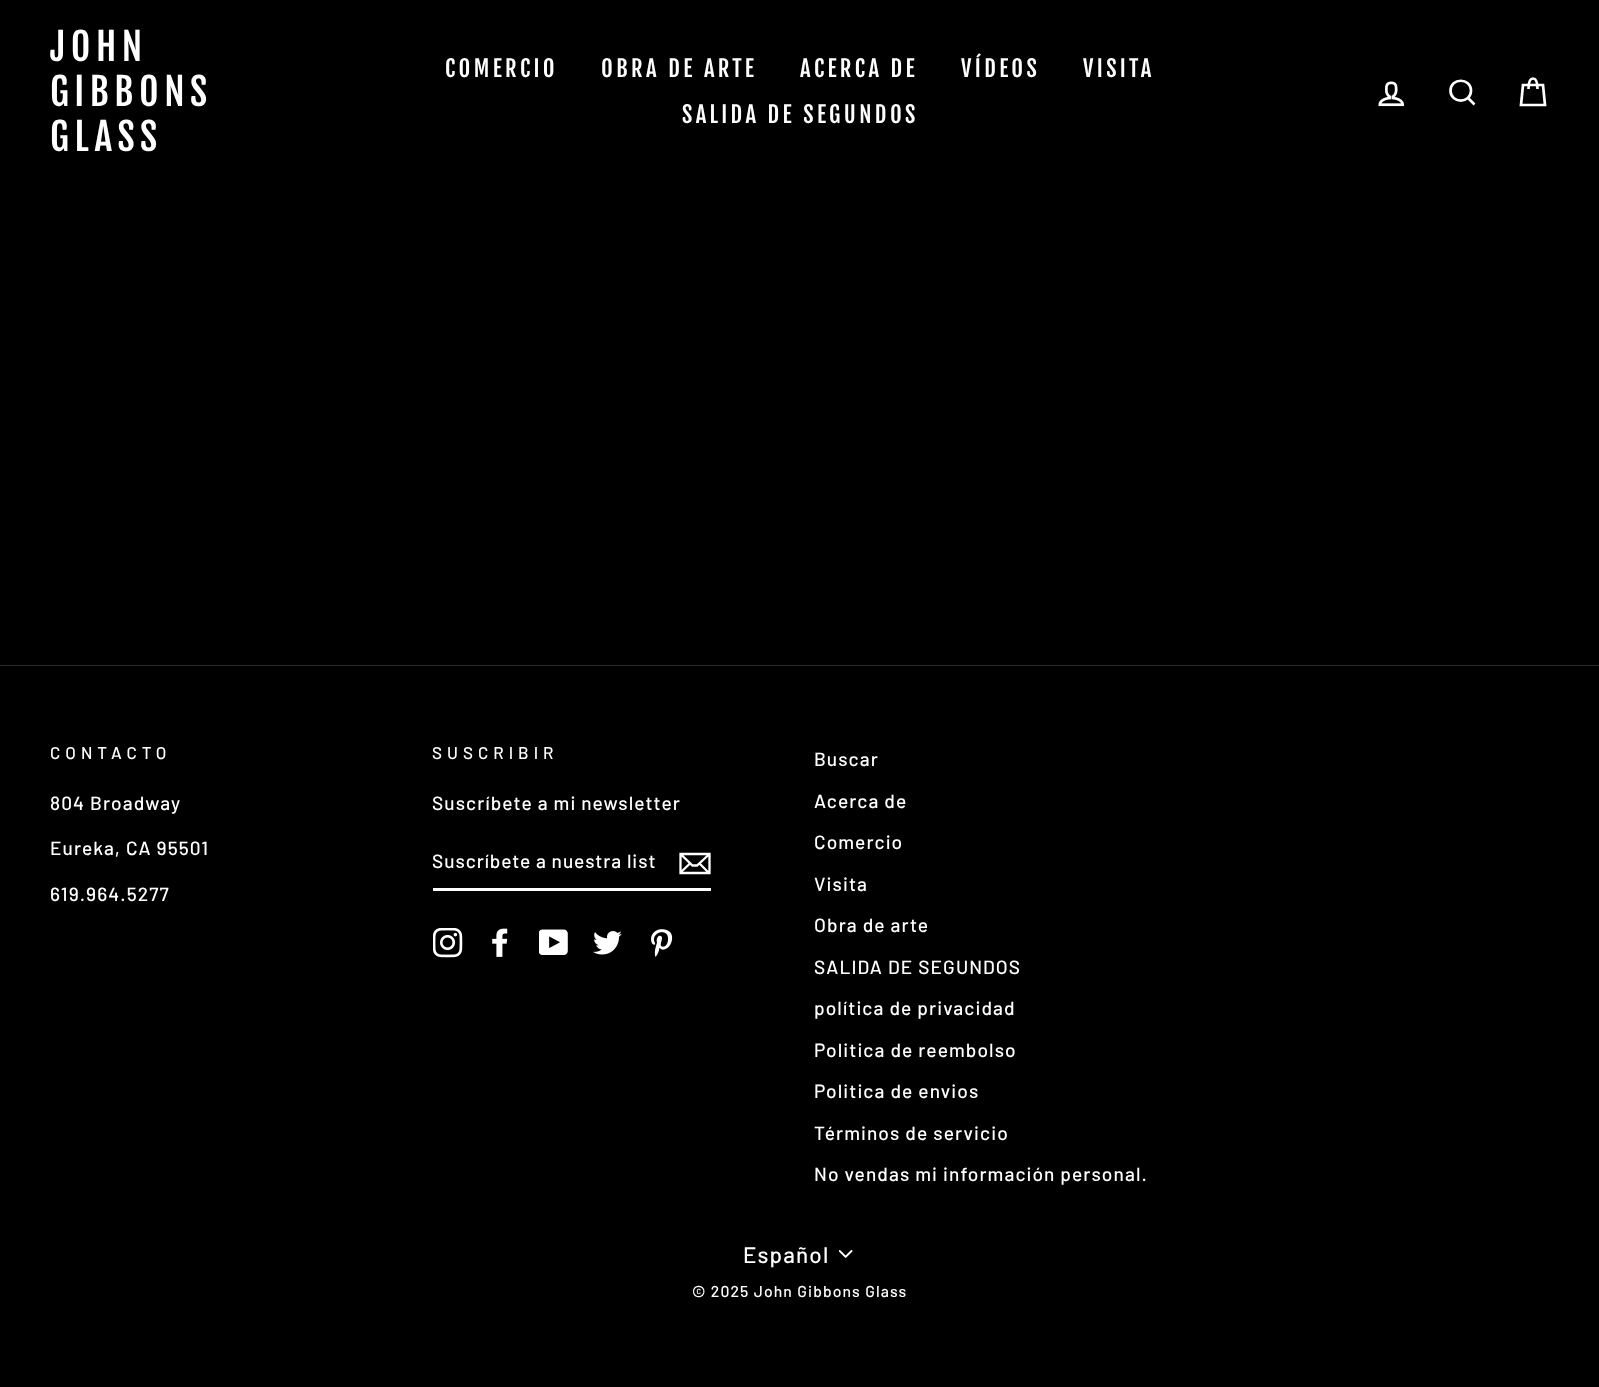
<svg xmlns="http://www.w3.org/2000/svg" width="1599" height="1387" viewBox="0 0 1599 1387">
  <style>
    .t1 { font: 37.5px Fjalla One; letter-spacing: 5.5px; fill: #fff; }
    .t2 { font: 22.5px Fjalla One; letter-spacing: 3.4px; fill: #fff; }
    .t3 { font: 500 17px Barlow; letter-spacing: 5px; fill: #fff; }
    .t4 { font: 500 19.1px Barlow; letter-spacing: 1.1px; fill: #fff; }
    .t5 { font: 500 19.1px Barlow; letter-spacing: 0.95px; fill: #fff; }
    .t6 { font: 500 22.5px Barlow; letter-spacing: 1.1px; fill: #fff; }
    .t7 { font: 500 15.75px Barlow; letter-spacing: 1.1px; fill: #fff; }
  </style>
  <rect width="100%" height="100%" fill="#000"/>
  <text x="50" y="61" class="t1">JOHN</text>
  <text x="50" y="106" class="t1">GIBBONS</text>
  <text x="50" y="151" class="t1">GLASS</text>
  <text x="445" y="77" class="t2">COMERCIO</text>
  <text x="601" y="77" class="t2">OBRA DE ARTE</text>
  <text x="800" y="77" class="t2">ACERCA DE</text>
  <text x="961" y="77" class="t2">VÍDEOS</text>
  <text x="1083" y="77" class="t2">VISITA</text>
  <text x="682" y="123" class="t2">SALIDA DE SEGUNDOS</text>
  <image x="1378" y="81" width="27" height="26" href="images/1.png"/>
  <path d="M1471 90.5C1471 104 1450.5 104 1450.5 90.5C1450.5 77.5 1471 77.5 1471 90.5ZM1474.5 104.5L1468 98" fill="none" stroke="#fff" stroke-width="2.7"/>
  <path d="M1528.5 89C1528.5 80.5 1530.5 78.5 1533 78.5C1535.5 78.5 1537.5 80.5 1537.5 89M1523 85H1543L1545 105H1521Z" fill="none" stroke="#fff" stroke-width="2.7"/>
  <rect x="0" y="665" width="1599" height="1" fill="#2b2a27"/>
  <text x="50" y="759" class="t3">CONTACTO</text>
  <text x="50" y="810" class="t4">804 Broadway</text>
  <text x="50" y="855" class="t4">Eureka, CA 95501</text>
  <text x="50" y="901" class="t4">619.964.5277</text>
  <text x="432" y="759" class="t3">SUSCRIBIR</text>
  <text x="432" y="810" class="t4">Suscríbete a mi newsletter</text>
  <rect x="433" y="888" width="278" height="3" fill="#fff"/>
  <text x="432" y="868" class="t5">Suscríbete a nuestra list</text>
  <path d="M709.5 873H680.5V854H709.5ZM680.5 854L692.5 865.5H697L709.5 854M690 863.5L680.5 872.5M709 873L699.5 863.5" fill="none" stroke="#fff" stroke-width="2.3"/>
  <image x="433" y="928" width="30" height="30" href="images/2.png"/>
  <image x="492" y="928" width="16" height="29" href="images/3.png"/>
  <image x="539" y="929" width="29" height="26" href="images/4.png"/>
  <image x="593" y="931" width="29" height="24" href="images/5.png"/>
  <image x="651" y="929" width="22" height="28" href="images/6.png"/>
  <text x="814" y="766" class="t4">Buscar</text>
  <text x="814" y="808" class="t4">Acerca de</text>
  <text x="814" y="849" class="t4">Comercio</text>
  <text x="814" y="891" class="t4">Visita</text>
  <text x="814" y="932" class="t4">Obra de arte</text>
  <text x="814" y="974" class="t4">SALIDA DE SEGUNDOS</text>
  <text x="814" y="1015" class="t4">política de privacidad</text>
  <text x="814" y="1057" class="t4">Politica de reembolso</text>
  <text x="814" y="1098" class="t4">Politica de envios</text>
  <text x="814" y="1140" class="t4">Términos de servicio</text>
  <text x="814" y="1181" class="t4">No vendas mi información personal.</text>
  <image x="839" y="1250" width="14" height="8" href="images/7.png"/>
  <text x="743" y="1263" class="t6">Español</text>
  <text x="692" y="1297" class="t7">© 2025 John Gibbons Glass</text>
</svg>
